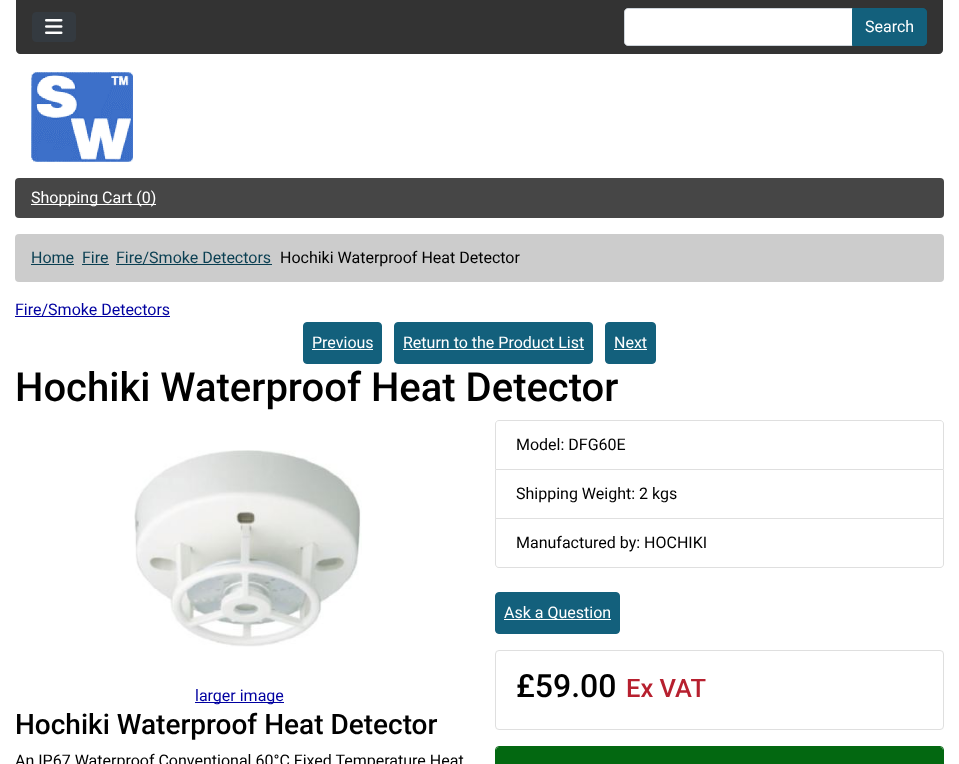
<svg xmlns="http://www.w3.org/2000/svg" width="959" height="764" viewBox="0 0 959 764">
  <style>
    .t1 { font: 16px Roboto; fill: #fff; }
    .t2 { font: 16px Roboto; fill: #0a3f52; }
    .t3 { font: 16px Roboto; fill: #000; }
    .t4 { font: 16px Roboto; fill: #0000a0; }
    .t5 { font: 500 40px Roboto; fill: #000; }
    .t6 { font: 500 32px Roboto; fill: #000; }
    .t7 { font: 500 25.5px Roboto; fill: #b7202f; }
    .t8 { font: 500 28px Roboto; fill: #000; }
  </style>
  <rect width="100%" height="100%" fill="#fff"/>
  <path d="M16 0H943V50C943 52 941 54 939 54H20C18 54 16 52 16 50Z" fill="#333"/>
  <rect x="32.5" y="12.5" width="43" height="29" rx="3.5" fill="#343a40" stroke="#343a40"/>
  <image x="45" y="19" width="18" height="15" href="images/1.png"/>
  <path d="M628 8.5H852.5V45.5H628C626 45.5 624.5 44 624.5 42V12C624.5 10 626 8.5 628 8.5Z" fill="#fff" stroke="#ced4da"/>
  <path d="M852.5 8.5H923C925 8.5 926.5 10 926.5 12V42C926.5 44 925 45.5 923 45.5H852.5Z" fill="#13607c" stroke="#13607c"/>
  <text x="865" y="32" class="t1">Search</text>
  <image x="31" y="72" width="102" height="90" href="images/2.png"/>
  <rect x="15" y="178" width="929" height="40" rx="4" fill="#464646"/>
  <rect x="31" y="204" width="125" height="1" fill="#fff"/>
  <text x="31" y="203" class="t1">Shopping Cart (0)</text>
  <rect x="15" y="234" width="929" height="48" rx="4" fill="#ccc"/>
  <text x="31" y="263" class="t2">Home</text>
  <rect x="31" y="264" width="43" height="1" fill="#0a3f52"/>
  <text x="82" y="263" class="t2">Fire</text>
  <rect x="82" y="264" width="27" height="1" fill="#0a3f52"/>
  <text x="116" y="263" class="t2">Fire/Smoke Detectors</text>
  <rect x="116" y="264" width="156" height="1" fill="#0a3f52"/>
  <text x="280" y="263" class="t3">Hochiki Waterproof Heat Detector</text>
  <text x="15" y="315" class="t4">Fire/Smoke Detectors</text>
  <rect x="15" y="316" width="155" height="1" fill="#0000a0"/>
  <rect x="303.5" y="322.5" width="78" height="41" rx="3.5" fill="#13607c" stroke="#13607c"/>
  <text x="312" y="348" class="t1">Previous</text>
  <rect x="312" y="349" width="61" height="1" fill="#fff"/>
  <rect x="394.5" y="322.5" width="198" height="41" rx="3.5" fill="#13607c" stroke="#13607c"/>
  <text x="403" y="348" class="t1">Return to the Product List</text>
  <rect x="403" y="349" width="181" height="1" fill="#fff"/>
  <rect x="605.5" y="322.5" width="50" height="41" rx="3.5" fill="#13607c" stroke="#13607c"/>
  <text x="614" y="348" class="t1">Next</text>
  <rect x="614" y="349" width="33" height="1" fill="#fff"/>
  <text x="15" y="401" class="t5">Hochiki Waterproof Heat Detector</text>
  <path d="M499 420.5H940C942 420.5 943.5 422 943.5 424V469.5H495.5V424C495.5 422 497 420.5 499 420.5Z" fill="none" stroke="#dfdfdf"/>
  <text x="516" y="450" class="t3">Model: DFG60E</text>
  <path d="M944 470V519L943 518V470Z" fill="#dfdfdf"/>
  <path d="M944 519H495L496 518H943Z" fill="#0000001f"/>
  <path d="M495 519V470H496V518Z" fill="#0000001f"/>
  <text x="516" y="499" class="t3">Shipping Weight: 2 kgs</text>
  <path d="M495 519H944V564C944 566 942 568 940 568H499C497 568 495 566 495 564ZM496 519H943V564C943 566 942 567 940 567H499C497 567 496 566 496 564Z" fill="#dfdfdf" fill-rule="evenodd"/>
  <text x="516" y="548" class="t3">Manufactured by: HOCHIKI</text>
  <rect x="495.5" y="592.5" width="124" height="41" rx="3.5" fill="#13607c" stroke="#13607c"/>
  <rect x="504" y="619" width="107" height="1" fill="#fff"/>
  <text x="504" y="618" class="t1">Ask a Question</text>
  <rect x="495.5" y="650.5" width="448" height="79" rx="3.5" fill="none" stroke="#dfdfdf"/>
  <text x="516" y="697" class="t6">£59.00</text>
  <text x="626" y="697" class="t7">Ex VAT</text>
  <rect x="495.5" y="746.5" width="448" height="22" rx="3.5" fill="none" stroke="#036811"/>
  <path d="M499 747H940C941.5 747 943 748.5 943 750V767H496V750C496 748.5 497.5 747 499 747Z" fill="#036811"/>
  <image x="134" y="450" width="228" height="197" href="images/3.png"/>
  <rect x="195" y="702" width="89" height="1" fill="#0000a0"/>
  <text x="195" y="701" class="t4">larger image</text>
  <text x="15" y="734" class="t8">Hochiki Waterproof Heat Detector</text>
  <text x="15" y="766" class="t3">An IP67 Waterproof Conventional 60°C Fixed Temperature Heat</text>
</svg>
